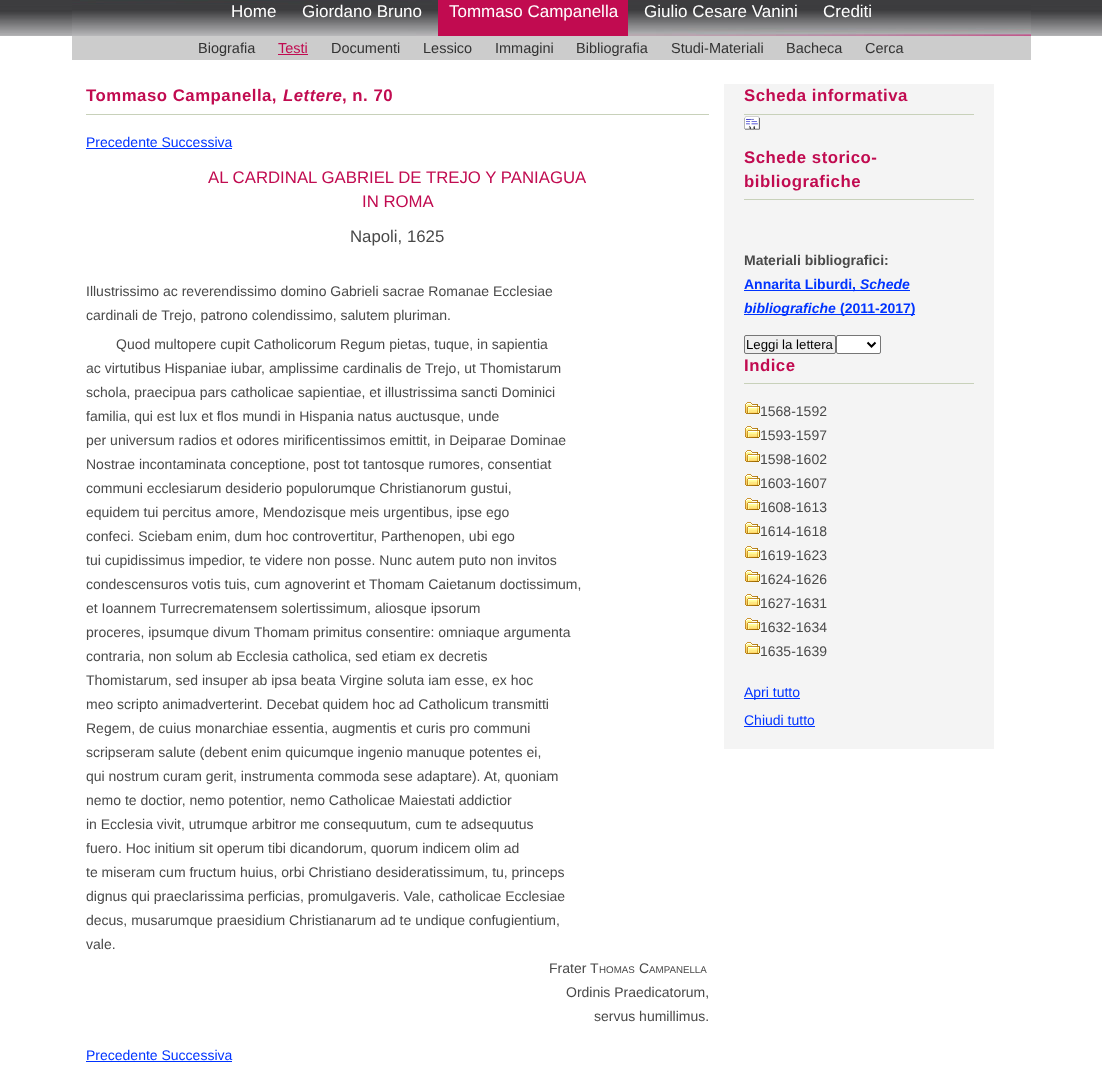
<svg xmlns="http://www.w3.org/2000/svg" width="1102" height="1074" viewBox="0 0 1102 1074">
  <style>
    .t1 { font: 17px Liberation Sans; fill: #fff; }
    .t2 { font: 14.5px Liberation Sans; fill: #333; }
    .t3 { font: 14.5px Liberation Sans; fill: #c10b50; }
    .t4 { font: bold 16.8px Liberation Sans; letter-spacing: 0.5px; fill: #c10b50; }
    .t5 { font: italic bold 16.8px Liberation Sans; letter-spacing: 0.5px; fill: #c10b50; }
    .t6 { font: 14px Liberation Sans; fill: #03f; }
    .t7 { font: 16.8px Liberation Sans; fill: #c10b50; }
    .t8 { font: 16.8px Liberation Sans; fill: #494949; }
    .t9 { font: 14px Liberation Sans; fill: #494949; }
    .t10 { font: 9.75px Liberation Sans; fill: #494949; }
    .t11 { font: bold 14px Liberation Sans; fill: #494949; }
    .t12 { font: bold 14px Liberation Sans; fill: #03f; }
    .t13 { font: italic bold 14px Liberation Sans; fill: #03f; }
    .t14 { font: 13.25px Liberation Sans; fill: #000; }
  </style>
  <rect width="100%" height="100%" fill="#fff"/>
  <image x="0" y="0" width="1102" height="36" href="images/1.png"/>
  <image x="72" y="0" width="959" height="36" href="images/2.png"/>
  <text x="231" y="17" class="t1">Home</text>
  <text x="302" y="17" class="t1">Giordano Bruno</text>
  <rect x="438" y="0" width="190" height="36" fill="#c10b50"/>
  <text x="449" y="17" class="t1">Tommaso Campanella</text>
  <text x="644" y="17" class="t1">Giulio Cesare Vanini</text>
  <text x="823" y="17" class="t1">Crediti</text>
  <rect x="72" y="36" width="959" height="24" fill="#ccc"/>
  <text x="198" y="53" class="t2">Biografia</text>
  <text x="278" y="53" class="t3">Testi</text>
  <rect x="278" y="54" width="30" height="1" fill="#c10b50"/>
  <text x="331" y="53" class="t2">Documenti</text>
  <text x="423" y="53" class="t2">Lessico</text>
  <text x="495" y="53" class="t2">Immagini</text>
  <text x="576" y="53" class="t2">Bibliografia</text>
  <text x="671" y="53" class="t2">Studi-Materiali</text>
  <text x="786" y="53" class="t2">Bacheca</text>
  <text x="865" y="53" class="t2">Cerca</text>
  <rect x="86" y="114" width="623" height="1" fill="#c8d1ba"/>
  <text x="86" y="101" class="t4">Tommaso Campanella,</text>
  <text x="283" y="101" class="t5">Lettere</text>
  <text x="342" y="101" class="t4">, n. 70</text>
  <text x="86" y="147" class="t6">Precedente Successiva</text>
  <rect x="86" y="148" width="146" height="1" fill="#03f"/>
  <text x="208" y="183" class="t7">AL CARDINAL GABRIEL DE TREJO Y PANIAGUA</text>
  <text x="362" y="207" class="t7">IN ROMA</text>
  <text x="350" y="242" class="t8">Napoli, 1625</text>
  <text x="86" y="296" class="t9">Illustrissimo ac reverendissimo domino Gabrieli sacrae Romanae Ecclesiae</text>
  <text x="86" y="320" class="t9">cardinali de Trejo, patrono colendissimo, salutem pluriman.</text>
  <text x="116" y="349" class="t9">Quod multopere cupit Catholicorum Regum pietas, tuque, in sapientia</text>
  <text x="86" y="373" class="t9">ac virtutibus Hispaniae iubar, amplissime cardinalis de Trejo, ut Thomistarum</text>
  <text x="86" y="397" class="t9">schola, praecipua pars catholicae sapientiae, et illustrissima sancti Dominici</text>
  <text x="86" y="421" class="t9">familia, qui est lux et flos mundi in Hispania natus auctusque, unde</text>
  <text x="86" y="445" class="t9">per universum radios et odores mirificentissimos emittit, in Deiparae Dominae</text>
  <text x="86" y="469" class="t9">Nostrae incontaminata conceptione, post tot tantosque rumores, consentiat</text>
  <text x="86" y="493" class="t9">communi ecclesiarum desiderio populorumque Christianorum gustui,</text>
  <text x="86" y="517" class="t9">equidem tui percitus amore, Mendozisque meis urgentibus, ipse ego</text>
  <text x="86" y="541" class="t9">confeci. Sciebam enim, dum hoc controvertitur, Parthenopen, ubi ego</text>
  <text x="86" y="565" class="t9">tui cupidissimus impedior, te videre non posse. Nunc autem puto non invitos</text>
  <text x="86" y="589" class="t9">condescensuros votis tuis, cum agnoverint et Thomam Caietanum doctissimum,</text>
  <text x="86" y="613" class="t9">et Ioannem Turrecrematensem solertissimum, aliosque ipsorum</text>
  <text x="86" y="637" class="t9">proceres, ipsumque divum Thomam primitus consentire: omniaque argumenta</text>
  <text x="86" y="661" class="t9">contraria, non solum ab Ecclesia catholica, sed etiam ex decretis</text>
  <text x="86" y="685" class="t9">Thomistarum, sed insuper ab ipsa beata Virgine soluta iam esse, ex hoc</text>
  <text x="86" y="709" class="t9">meo scripto animadverterint. Decebat quidem hoc ad Catholicum transmitti</text>
  <text x="86" y="733" class="t9">Regem, de cuius monarchiae essentia, augmentis et curis pro communi</text>
  <text x="86" y="757" class="t9">scripseram salute (debent enim quicumque ingenio manuque potentes ei,</text>
  <text x="86" y="781" class="t9">qui nostrum curam gerit, instrumenta commoda sese adaptare). At, quoniam</text>
  <text x="86" y="805" class="t9">nemo te doctior, nemo potentior, nemo Catholicae Maiestati addictior</text>
  <text x="86" y="829" class="t9">in Ecclesia vivit, utrumque arbitror me consequutum, cum te adsequutus</text>
  <text x="86" y="853" class="t9">fuero. Hoc initium sit operum tibi dicandorum, quorum indicem olim ad</text>
  <text x="86" y="877" class="t9">te miseram cum fructum huius, orbi Christiano desideratissimum, tu, princeps</text>
  <text x="86" y="901" class="t9">dignus qui praeclarissima perficias, promulgaveris. Vale, catholicae Ecclesiae</text>
  <text x="86" y="925" class="t9">decus, musarumque praesidium Christianarum ad te undique confugientium,</text>
  <text x="86" y="949" class="t9">vale.</text>
  <text x="549" y="973" class="t9">Frater T</text>
  <text x="599" y="973" class="t10">HOMAS</text>
  <text x="639" y="973" class="t9">C</text>
  <text x="649" y="973" class="t10">AMPANELLA</text>
  <text x="566" y="997" class="t9">Ordinis Praedicatorum,</text>
  <text x="594" y="1021" class="t9">servus humillimus.</text>
  <text x="86" y="1060" class="t6">Precedente Successiva</text>
  <rect x="86" y="1061" width="146" height="1" fill="#03f"/>
  <rect x="724" y="84" width="270" height="665" fill="#f4f4f4"/>
  <rect x="744" y="114" width="230" height="1" fill="#c8d1ba"/>
  <text x="744" y="101" class="t4">Scheda informativa</text>
  <image x="744" y="116" width="16" height="14" href="images/3.png"/>
  <rect x="744" y="199" width="230" height="1" fill="#c8d1ba"/>
  <text x="744" y="163" class="t4">Schede storico-</text>
  <text x="744" y="187" class="t4">bibliografiche</text>
  <text x="744" y="265" class="t11">Materiali bibliografici:</text>
  <rect x="744" y="290" width="166" height="1" fill="#03f"/>
  <text x="744" y="289" class="t12">Annarita Liburdi,</text>
  <text x="860" y="289" class="t13">Schede</text>
  <rect x="744" y="314" width="171" height="1" fill="#03f"/>
  <text x="744" y="313" class="t13">bibliografiche</text>
  <text x="840" y="313" class="t12">(2011-2017)</text>
  <rect x="744.5" y="335.5" width="91" height="18" rx="1.5" fill="#efefef" stroke="#767676"/>
  <text x="746" y="349" class="t14">Leggi la lettera</text>
  <rect x="836.5" y="335.5" width="44" height="18" rx="1.5" fill="#fff" stroke="#767676"/>
  <path d="M867.5 342.5L871.5 346.5L875.5 342.5" fill="none" stroke="#000" stroke-width="2"/>
  <rect x="744" y="383" width="230" height="1" fill="#c8d1ba"/>
  <text x="744" y="371" class="t4">Indice</text>
  <image x="745" y="402" width="15" height="12" href="images/4.png"/>
  <text x="760" y="416" class="t9">1568-1592</text>
  <image x="745" y="426" width="15" height="12" href="images/4.png"/>
  <text x="760" y="440" class="t9">1593-1597</text>
  <image x="745" y="450" width="15" height="12" href="images/4.png"/>
  <text x="760" y="464" class="t9">1598-1602</text>
  <image x="745" y="474" width="15" height="12" href="images/4.png"/>
  <text x="760" y="488" class="t9">1603-1607</text>
  <image x="745" y="498" width="15" height="12" href="images/4.png"/>
  <text x="760" y="512" class="t9">1608-1613</text>
  <image x="745" y="522" width="15" height="12" href="images/4.png"/>
  <text x="760" y="536" class="t9">1614-1618</text>
  <image x="745" y="546" width="15" height="12" href="images/4.png"/>
  <text x="760" y="560" class="t9">1619-1623</text>
  <image x="745" y="570" width="15" height="12" href="images/4.png"/>
  <text x="760" y="584" class="t9">1624-1626</text>
  <image x="745" y="594" width="15" height="12" href="images/4.png"/>
  <text x="760" y="608" class="t9">1627-1631</text>
  <image x="745" y="618" width="15" height="12" href="images/4.png"/>
  <text x="760" y="632" class="t9">1632-1634</text>
  <image x="745" y="642" width="15" height="12" href="images/4.png"/>
  <text x="760" y="656" class="t9">1635-1639</text>
  <rect x="744" y="698" width="56" height="1" fill="#03f"/>
  <text x="744" y="697" class="t6">Apri tutto</text>
  <text x="744" y="725" class="t6">Chiudi tutto</text>
  <rect x="744" y="726" width="71" height="1" fill="#03f"/>
</svg>
